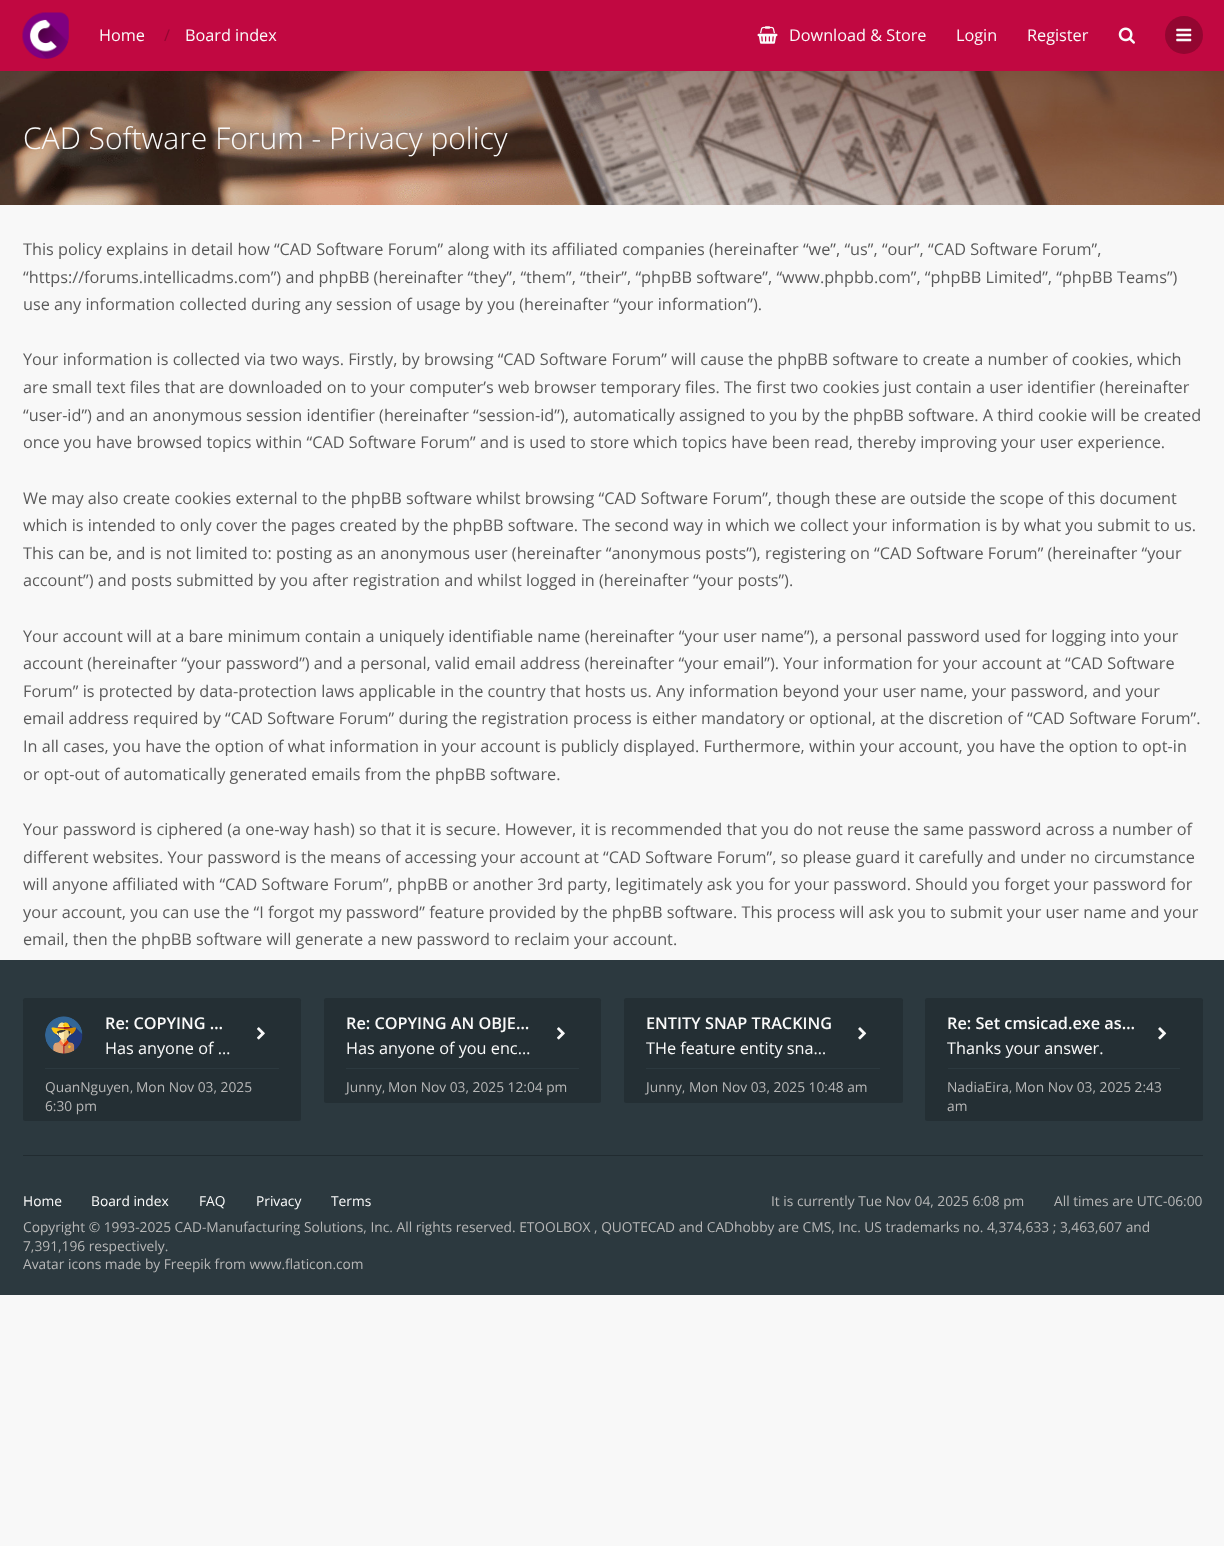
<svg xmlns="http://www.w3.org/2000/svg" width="1224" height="1546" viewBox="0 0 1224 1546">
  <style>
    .t1 { font: 16.25px Open Sans; fill: #fafafa; }
    .t2 { font: 16.25px Open Sans; fill: #930631; }
    .t3 { font: 300 30px Open Sans; fill: #fafafa; }
    .t4 { font: 16.25px Open Sans; fill: #5a5a5a; }
    .t5 { font: 600 16.25px Open Sans; fill: #fafafa; }
    .t6 { font: 13.75px Open Sans; fill: #b7b7b7; }
    .t7 { font: 12px Open Sans; fill: #b7b7b7; }
    .t8 { font: 13.75px Open Sans; fill: #fafafa; }
  </style>
  <rect width="100%" height="100%" fill="#f8f8f8"/>
  <rect x="0" y="0" width="1224" height="71" fill="#c10841"/>
  <image x="22" y="12" width="47" height="47" href="images/1.png"/>
  <text x="99" y="41" class="t1">Home</text>
  <text x="164" y="41" class="t2">/</text>
  <text x="185" y="41" class="t1">Board index</text>
  <image x="757" y="26" width="21" height="18" href="images/2.png"/>
  <text x="789" y="41" class="t1">Download &amp; Store</text>
  <text x="956" y="41" class="t1">Login</text>
  <text x="1027" y="41" class="t1">Register</text>
  <image x="1118" y="27" width="17" height="17" href="images/3.png"/>
  <circle cx="1184" cy="35" r="19" fill="#930631"/>
  <image x="1176" y="28" width="16" height="14" href="images/4.png"/>
  <image x="0" y="71" width="1224" height="134" href="images/5.png"/>
  <text x="23" y="149" class="t3">CAD Software Forum - Privacy policy</text>
  <text x="23" y="255" class="t4">This policy explains in detail how “CAD Software Forum” along with its affiliated companies (hereinafter “we”, “us”, “our”, “CAD Software Forum”,</text>
  <text x="23" y="283" class="t4">“https://forums.intellicadms.com”) and phpBB (hereinafter “they”, “them”, “their”, “phpBB software”, “www.phpbb.com”, “phpBB Limited”, “phpBB Teams”)</text>
  <text x="23" y="310" class="t4">use any information collected during any session of usage by you (hereinafter “your information”).</text>
  <text x="23" y="365" class="t4">Your information is collected via two ways. Firstly, by browsing “CAD Software Forum” will cause the phpBB software to create a number of cookies, which</text>
  <text x="23" y="393" class="t4">are small text files that are downloaded on to your computer’s web browser temporary files. The first two cookies just contain a user identifier (hereinafter</text>
  <text x="23" y="421" class="t4">“user-id”) and an anonymous session identifier (hereinafter “session-id”), automatically assigned to you by the phpBB software. A third cookie will be created</text>
  <text x="23" y="448" class="t4">once you have browsed topics within “CAD Software Forum” and is used to store which topics have been read, thereby improving your user experience.</text>
  <text x="23" y="504" class="t4">We may also create cookies external to the phpBB software whilst browsing “CAD Software Forum”, though these are outside the scope of this document</text>
  <text x="23" y="531" class="t4">which is intended to only cover the pages created by the phpBB software. The second way in which we collect your information is by what you submit to us.</text>
  <text x="23" y="559" class="t4">This can be, and is not limited to: posting as an anonymous user (hereinafter “anonymous posts”), registering on “CAD Software Forum” (hereinafter “your</text>
  <text x="23" y="586" class="t4">account”) and posts submitted by you after registration and whilst logged in (hereinafter “your posts”).</text>
  <text x="23" y="642" class="t4">Your account will at a bare minimum contain a uniquely identifiable name (hereinafter “your user name”), a personal password used for logging into your</text>
  <text x="23" y="669" class="t4">account (hereinafter “your password”) and a personal, valid email address (hereinafter “your email”). Your information for your account at “CAD Software</text>
  <text x="23" y="697" class="t4">Forum” is protected by data-protection laws applicable in the country that hosts us. Any information beyond your user name, your password, and your</text>
  <text x="23" y="724" class="t4">email address required by “CAD Software Forum” during the registration process is either mandatory or optional, at the discretion of “CAD Software Forum”.</text>
  <text x="23" y="752" class="t4">In all cases, you have the option of what information in your account is publicly displayed. Furthermore, within your account, you have the option to opt-in</text>
  <text x="23" y="780" class="t4">or opt-out of automatically generated emails from the phpBB software.</text>
  <text x="23" y="835" class="t4">Your password is ciphered (a one-way hash) so that it is secure. However, it is recommended that you do not reuse the same password across a number of</text>
  <text x="23" y="863" class="t4">different websites. Your password is the means of accessing your account at “CAD Software Forum”, so please guard it carefully and under no circumstance</text>
  <text x="23" y="890" class="t4">will anyone affiliated with “CAD Software Forum”, phpBB or another 3rd party, legitimately ask you for your password. Should you forget your password for</text>
  <text x="23" y="918" class="t4">your account, you can use the “I forgot my password” feature provided by the phpBB software. This process will ask you to submit your user name and your</text>
  <text x="23" y="945" class="t4">email, then the phpBB software will generate a new password to reclaim your account.</text>
  <rect x="0" y="960" width="1224" height="335" fill="#2c393f"/>
  <rect x="23" y="998" width="278" height="123" rx="2.5" fill="#242f34"/>
  <image x="45" y="1016" width="38" height="38" href="images/6.png"/>
  <text x="105" y="1029" class="t5">Re: COPYING …</text>
  <text x="105" y="1054" class="t1">Has anyone of …</text>
  <rect x="45" y="1068" width="234" height="1" fill="#2c393f"/>
  <text x="45" y="1092" class="t6">QuanNguyen</text>
  <text x="130" y="1092" class="t7">,</text>
  <text x="136" y="1092" class="t6">Mon Nov 03, 2025</text>
  <text x="45" y="1111" class="t6">6:30 pm</text>
  <image x="257" y="1027" width="8" height="13" href="images/7.png"/>
  <rect x="324" y="998" width="277" height="105" rx="2.5" fill="#242f34"/>
  <text x="346" y="1029" class="t5">Re: COPYING AN OBJE…</text>
  <text x="346" y="1054" class="t1">Has anyone of you enc…</text>
  <rect x="346" y="1068" width="233" height="1" fill="#2c393f"/>
  <text x="346" y="1092" class="t6">Junny</text>
  <text x="382" y="1092" class="t7">,</text>
  <text x="388" y="1092" class="t6">Mon Nov 03, 2025 12:04 pm</text>
  <image x="557" y="1027" width="8" height="13" href="images/7.png"/>
  <rect x="624" y="998" width="279" height="105" rx="2.5" fill="#242f34"/>
  <text x="646" y="1029" class="t5">ENTITY SNAP TRACKING</text>
  <text x="646" y="1054" class="t1">THe feature entity sna…</text>
  <rect x="646" y="1068" width="234" height="1" fill="#2c393f"/>
  <text x="646" y="1092" class="t6">Junny</text>
  <text x="682" y="1092" class="t7">,</text>
  <text x="689" y="1092" class="t6">Mon Nov 03, 2025 10:48 am</text>
  <image x="858" y="1027" width="9" height="13" href="images/8.png"/>
  <rect x="925" y="998" width="278" height="123" rx="2.5" fill="#242f34"/>
  <text x="947" y="1029" class="t5">Re: Set cmsicad.exe as…</text>
  <text x="947" y="1054" class="t1">Thanks your answer.</text>
  <rect x="948" y="1068" width="232" height="1" fill="#2c393f"/>
  <text x="947" y="1092" class="t6">NadiaEira</text>
  <text x="1009" y="1092" class="t7">,</text>
  <text x="1015" y="1092" class="t6">Mon Nov 03, 2025 2:43</text>
  <text x="947" y="1111" class="t6">am</text>
  <image x="1158" y="1027" width="9" height="13" href="images/8.png"/>
  <rect x="23" y="1155" width="1180" height="1" fill="#212b30"/>
  <text x="23" y="1206" class="t8">Home</text>
  <text x="91" y="1206" class="t8">Board index</text>
  <text x="199" y="1206" class="t8">FAQ</text>
  <text x="256" y="1206" class="t8">Privacy</text>
  <text x="331" y="1206" class="t8">Terms</text>
  <text x="771" y="1206" class="t6">It is currently Tue Nov 04, 2025 6:08 pm</text>
  <text x="1054" y="1206" class="t6">All times are UTC-06:00</text>
  <text x="23" y="1232" class="t6">Copyright © 1993-2025 CAD-Manufacturing Solutions, Inc. All rights reserved. ETOOLBOX , QUOTECAD and CADhobby are CMS, Inc. US trademarks no. 4,374,633 ; 3,463,607 and</text>
  <text x="23" y="1251" class="t6">7,391,196 respectively.</text>
  <text x="23" y="1269" class="t6">Avatar icons made by Freepik from www.flaticon.com</text>
</svg>
